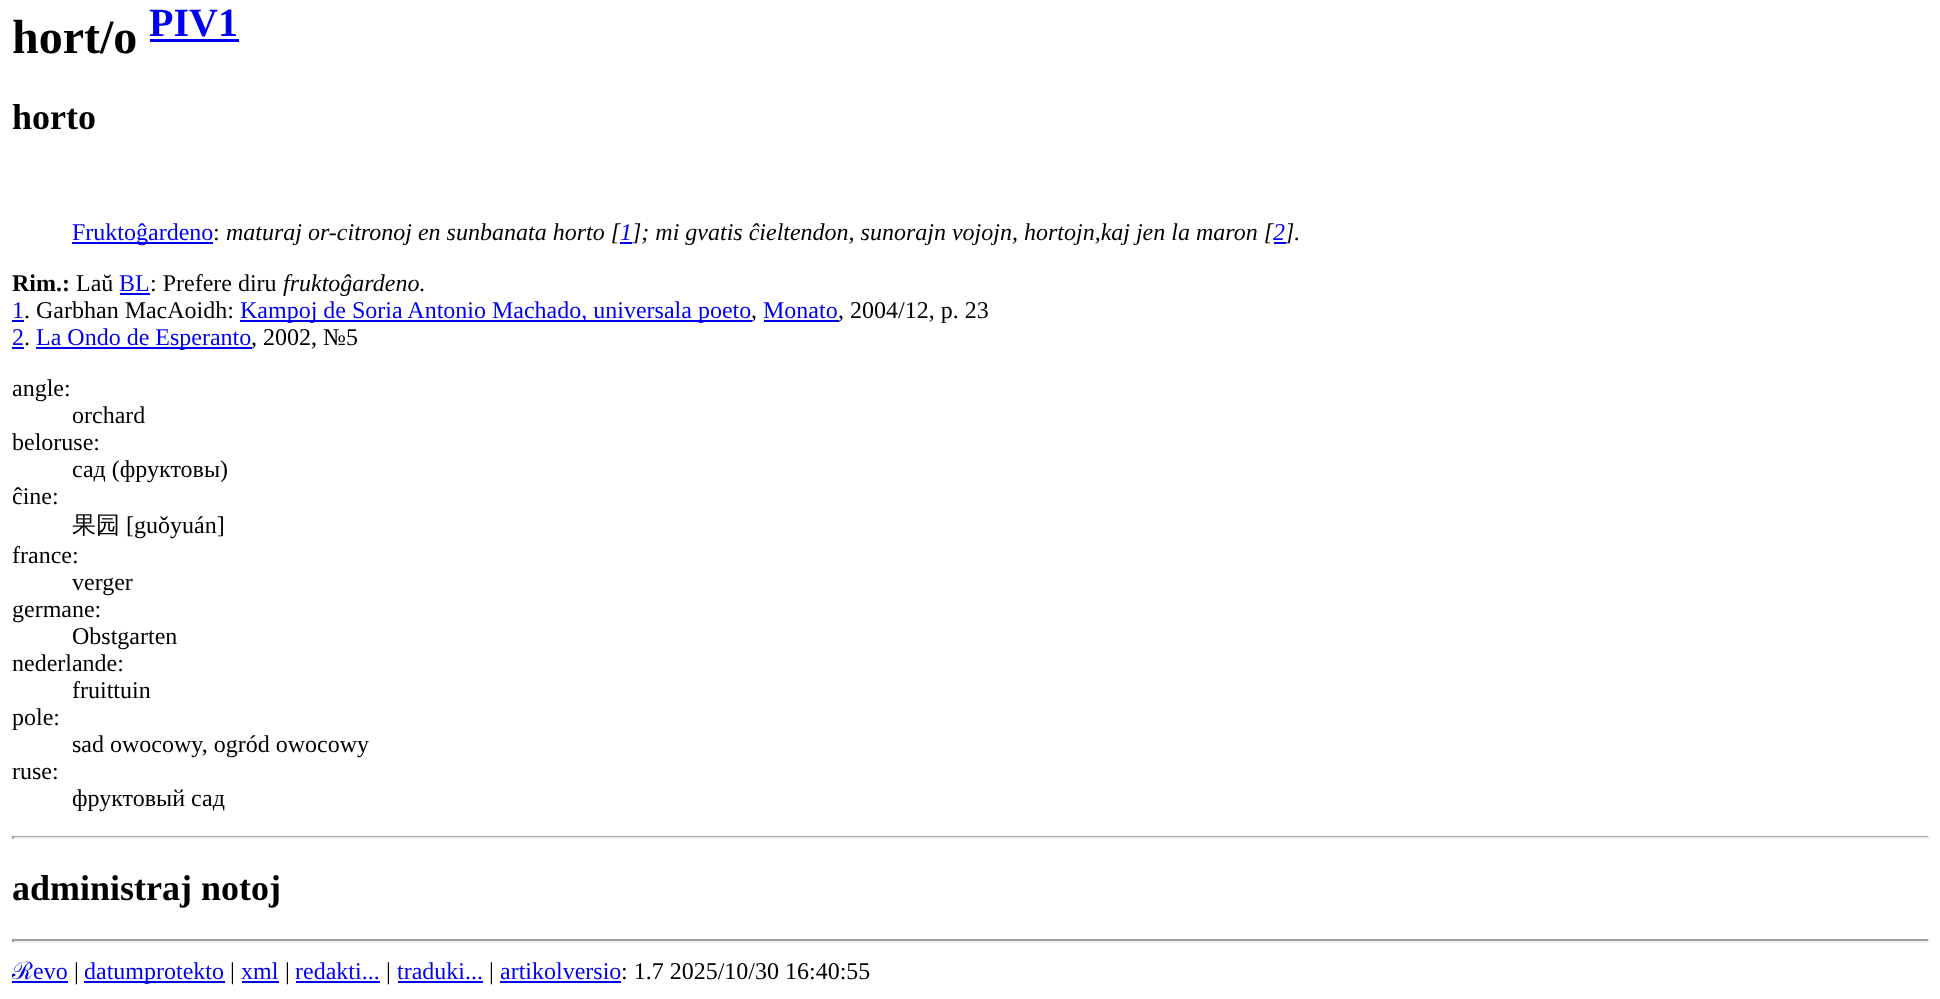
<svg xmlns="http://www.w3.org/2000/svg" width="1940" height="999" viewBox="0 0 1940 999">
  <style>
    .t1 { font: bold 48px Liberation Serif; fill: #000; }
    .t2 { font: bold 40px Liberation Serif; fill: #00e; }
    .t3 { font: bold 36px Liberation Serif; fill: #000; }
    .t4 { font: 24px Liberation Serif; fill: #00e; }
    .t5 { font: 24px Liberation Serif; fill: #000; }
    .t6 { font: italic 24px Liberation Serif; fill: #000; }
    .t7 { font: italic 24px Liberation Serif; fill: #00e; }
    .t8 { font: bold 24px Liberation Serif; fill: #000; }
    .t9 { font: 500 24px WenQuanYi Zen Hei; fill: #000; }
    .t10 { font: 24px Noto Sans; fill: #00e; }
  </style>
  <rect width="100%" height="100%" fill="#fff"/>
  <text x="12" y="53" class="t1">hort/o</text>
  <text x="149" y="36" class="t2">PIV1</text>
  <rect x="150" y="39" width="89" height="3" fill="#00e"/>
  <text x="12" y="129" class="t3">horto</text>
  <rect x="72" y="242" width="141" height="2" fill="#00e"/>
  <text x="72" y="240" class="t4">Fruktoĝardeno</text>
  <text x="213" y="240" class="t5">:</text>
  <text x="226" y="240" class="t6">maturaj or-citronoj en sunbanata horto [</text>
  <rect x="620" y="242" width="12" height="2" fill="#00e"/>
  <text x="620" y="240" class="t7">1</text>
  <text x="632" y="240" class="t6">]; mi gvatis ĉieltendon, sunorajn vojojn, hortojn,kaj jen la maron [</text>
  <rect x="1274" y="242" width="12" height="2" fill="#00e"/>
  <text x="1273" y="240" class="t7">2</text>
  <text x="1285" y="240" class="t6">].</text>
  <text x="12" y="291" class="t8">Rim.:</text>
  <text x="76" y="291" class="t5">Laŭ</text>
  <text x="119" y="291" class="t4">BL</text>
  <rect x="120" y="293" width="30" height="2" fill="#00e"/>
  <text x="150" y="291" class="t5">: Prefere diru</text>
  <text x="283" y="291" class="t6">fruktoĝardeno</text>
  <text x="419" y="291" class="t5">.</text>
  <text x="12" y="318" class="t4">1</text>
  <rect x="12" y="320" width="12" height="2" fill="#00e"/>
  <text x="24" y="318" class="t5">. Garbhan MacAoidh:</text>
  <rect x="240" y="320" width="512" height="2" fill="#00e"/>
  <text x="240" y="318" class="t4">Kampoj de Soria Antonio Machado, universala poeto</text>
  <text x="751" y="318" class="t5">,</text>
  <rect x="764" y="320" width="75" height="2" fill="#00e"/>
  <text x="763" y="318" class="t4">Monato</text>
  <text x="838" y="318" class="t5">, 2004/12, p. 23</text>
  <text x="12" y="345" class="t4">2</text>
  <text x="24" y="345" class="t5">.</text>
  <rect x="12" y="347" width="12" height="2" fill="#00e"/>
  <rect x="36" y="347" width="216" height="2" fill="#00e"/>
  <text x="36" y="345" class="t4">La Ondo de Esperanto</text>
  <text x="251" y="345" class="t5">, 2002, №5</text>
  <text x="12" y="396" class="t5">angle:</text>
  <text x="72" y="423" class="t5">orchard</text>
  <text x="12" y="450" class="t5">beloruse:</text>
  <text x="72" y="477" class="t5">сад (фруктовы)</text>
  <text x="12" y="504" class="t5">ĉine:</text>
  <text x="72" y="533" class="t9">果园</text>
  <text x="126" y="533" class="t5">[guǒyuán]</text>
  <text x="12" y="563" class="t5">france:</text>
  <text x="72" y="590" class="t5">verger</text>
  <text x="12" y="617" class="t5">germane:</text>
  <text x="72" y="644" class="t5">Obstgarten</text>
  <text x="12" y="671" class="t5">nederlande:</text>
  <text x="72" y="698" class="t5">fruittuin</text>
  <text x="12" y="725" class="t5">pole:</text>
  <text x="72" y="752" class="t5">sad owocowy, ogród owocowy</text>
  <text x="12" y="779" class="t5">ruse:</text>
  <text x="72" y="806" class="t5">фруктовый сад</text>
  <rect x="12" y="836" width="1917" height="1" fill="#9f9f9f"/>
  <rect x="1928" y="836" width="2" height="3" fill="#eee"/>
  <rect x="12" y="837" width="1917" height="2" fill="#eee"/>
  <rect x="12" y="836" width="2" height="3" fill="#9f9f9f"/>
  <text x="12" y="900" class="t3">administraj notoj</text>
  <rect x="12" y="939" width="1917" height="2" fill="#9f9f9f"/>
  <rect x="1928" y="939" width="2" height="3" fill="#eee"/>
  <rect x="12" y="941" width="1917" height="2" fill="#eee"/>
  <rect x="12" y="939" width="2" height="3" fill="#9f9f9f"/>
  <text x="12" y="979" class="t10">ℛ</text>
  <text x="33" y="979" class="t4">evo</text>
  <rect x="12" y="981" width="56" height="2" fill="#00e"/>
  <text x="74" y="979" class="t5">|</text>
  <rect x="84" y="981" width="141" height="2" fill="#00e"/>
  <text x="84" y="979" class="t4">datumprotekto</text>
  <text x="230" y="979" class="t5">|</text>
  <text x="241" y="979" class="t4">xml</text>
  <rect x="242" y="981" width="37" height="2" fill="#00e"/>
  <text x="285" y="979" class="t5">|</text>
  <text x="295" y="979" class="t4">redakti...</text>
  <rect x="296" y="981" width="84" height="2" fill="#00e"/>
  <text x="386" y="979" class="t5">|</text>
  <text x="397" y="979" class="t4">traduki...</text>
  <rect x="398" y="981" width="85" height="2" fill="#00e"/>
  <text x="489" y="979" class="t5">|</text>
  <text x="500" y="979" class="t4">artikolversio</text>
  <rect x="500" y="981" width="121" height="2" fill="#00e"/>
  <text x="621" y="979" class="t5">: 1.7 2025/10/30 16:40:55</text>
</svg>
